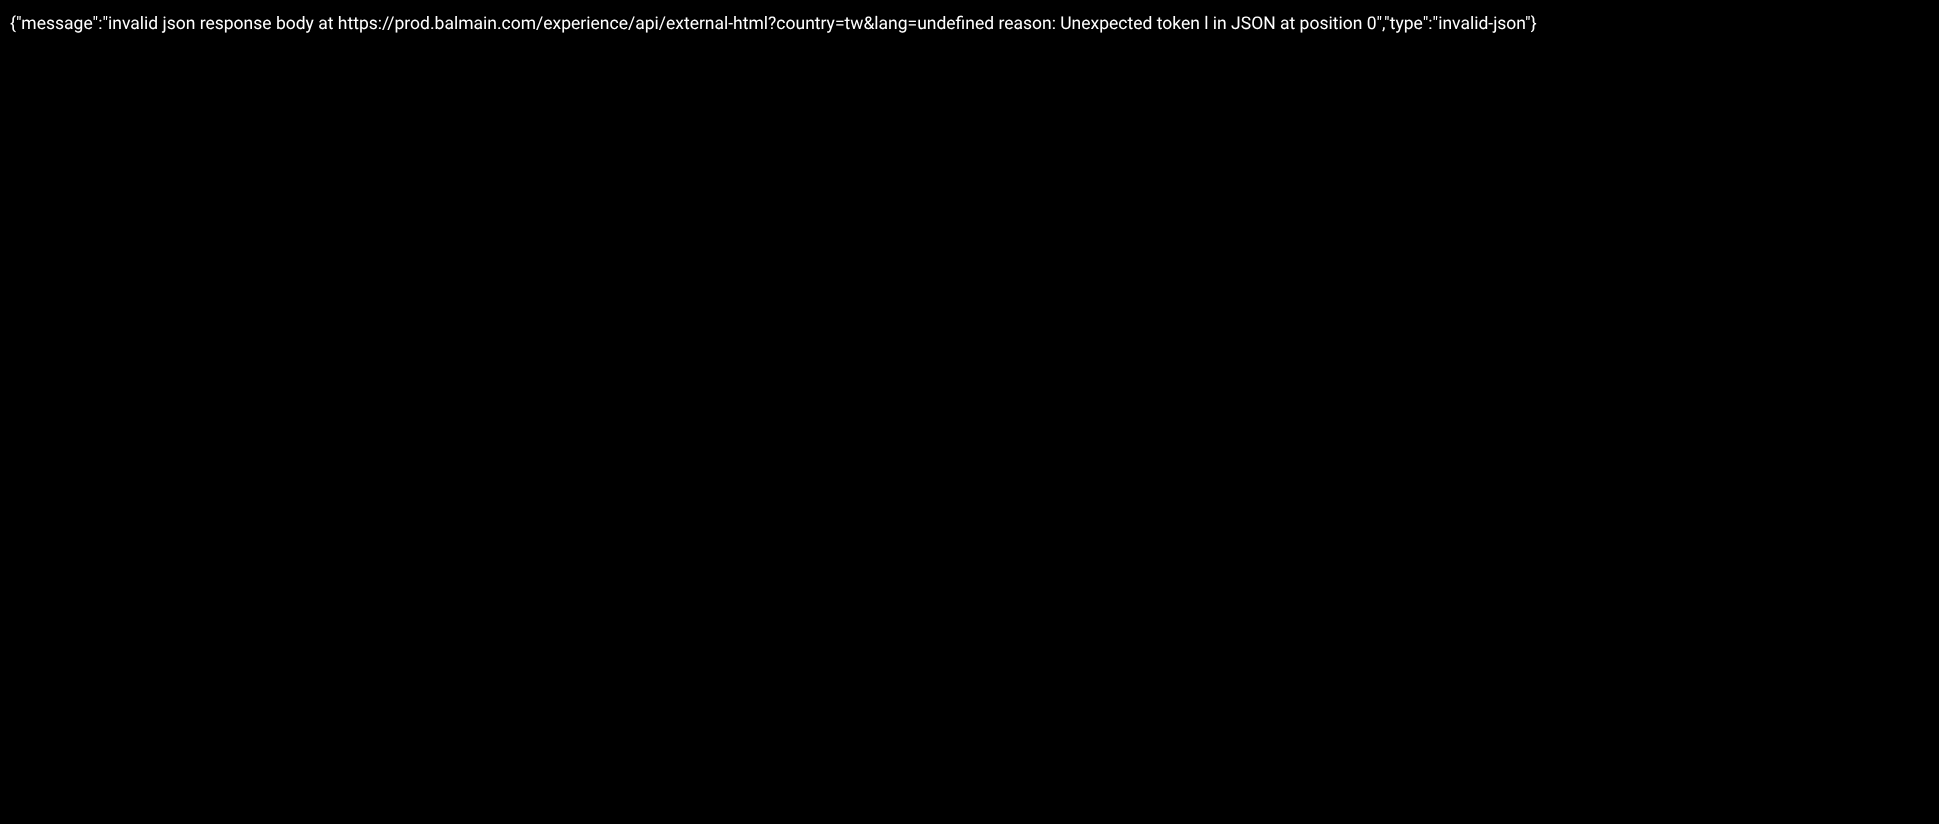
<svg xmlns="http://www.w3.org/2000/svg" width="1939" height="824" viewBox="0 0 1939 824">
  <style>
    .t1 { font: 17.5px Roboto; fill: #fff; }
  </style>
  <rect width="100%" height="100%" fill="#000"/>
  <text x="10" y="29" class="t1">{"message":"invalid json response body at https://prod.balmain.com/experience/api/external-html?country=tw&amp;lang=undefined reason: Unexpected token l in JSON at position 0","type":"invalid-json"}</text>
</svg>
